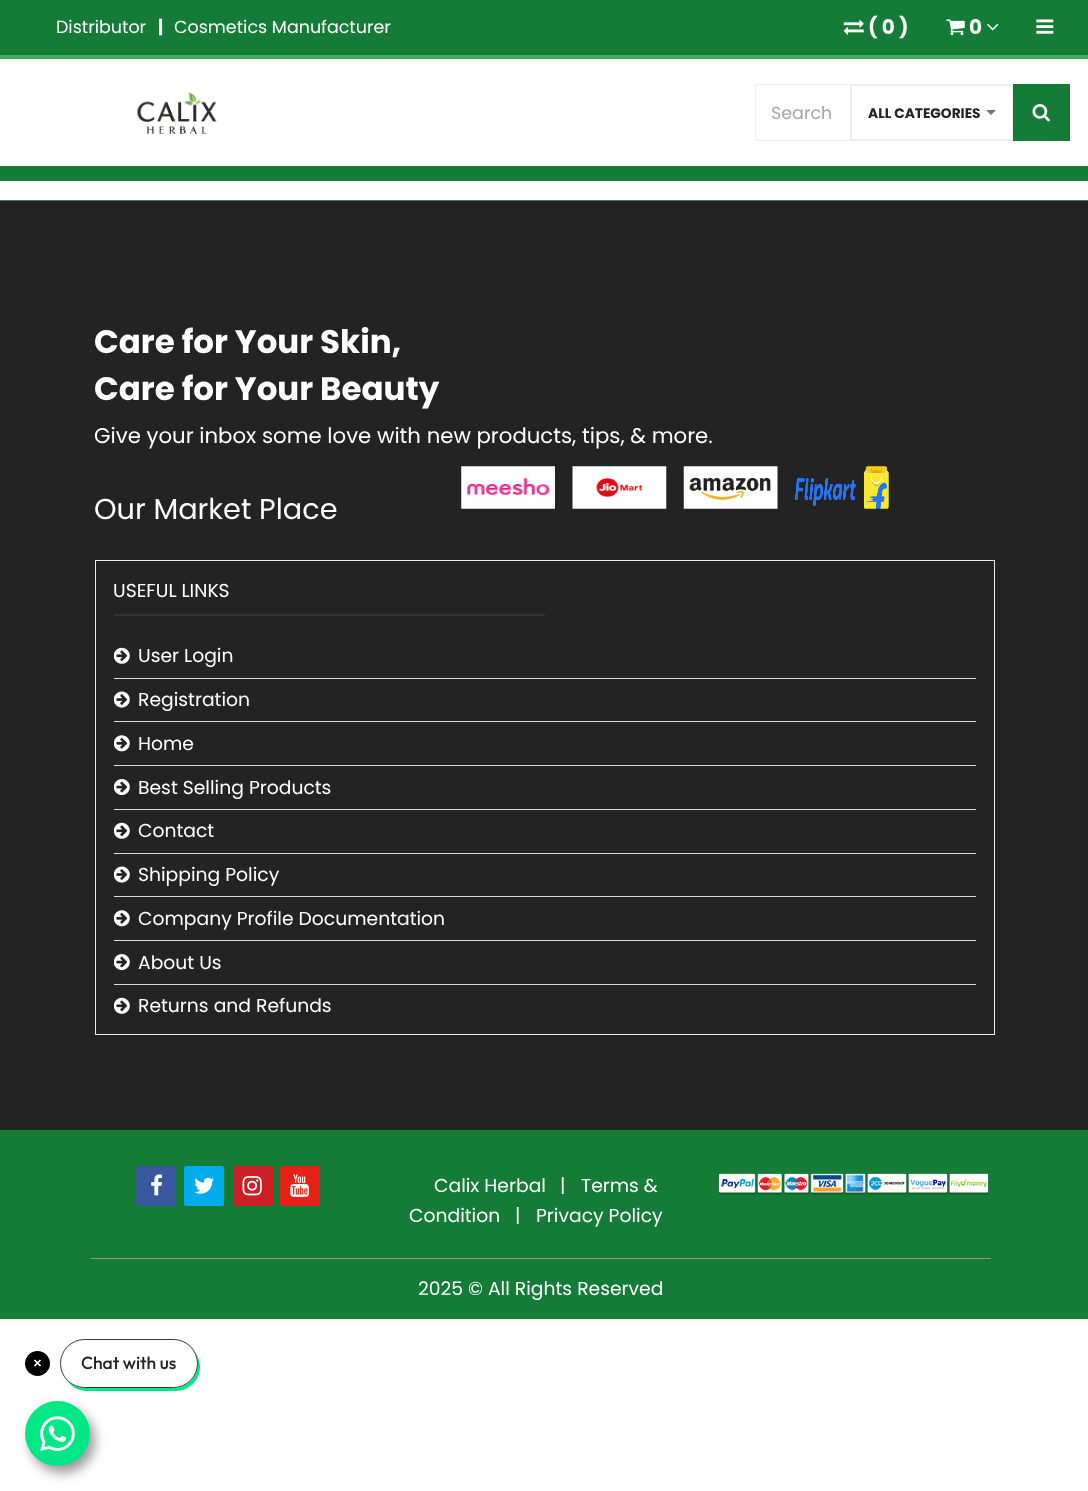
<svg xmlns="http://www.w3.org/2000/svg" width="1088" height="1491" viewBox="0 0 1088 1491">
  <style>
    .t1 { font: 17.5px Poppins; fill: #fff; }
    .t2 { font: bold 17.5px Poppins; fill: #fff; }
    .t3 { font: bold 20px Poppins; fill: #fff; }
    .t4 { font: 17.5px Poppins; fill: #a6a7a8; }
    .t5 { font: bold 13.75px Poppins; fill: #232323; }
    .t6 { font: bold 32.5px Poppins; fill: #fff; }
    .t7 { font: 21.25px Poppins; fill: #fff; }
    .t8 { font: 28.75px Poppins; fill: #fff; }
    .t9 { font: 18.75px Poppins; fill: #fff; }
    .t10 { font: 500 17.5px Outfit; fill: #232323; }
  </style>
  <rect width="100%" height="100%" fill="#fff"/>
  <rect x="0" y="55" width="1088" height="4" fill="#3fab5d"/>
  <rect x="0" y="0" width="1088" height="55" fill="#147c36"/>
  <text x="56" y="33" class="t1">Distributor</text>
  <text x="158" y="33" class="t2">|</text>
  <text x="174" y="33" class="t1">Cosmetics Manufacturer</text>
  <image x="843" y="19" width="21" height="16" href="images/1.png"/>
  <text x="868" y="34" class="t3">( 0 )</text>
  <image x="946" y="19" width="19" height="17" href="images/2.png"/>
  <text x="969" y="34" class="t3">0</text>
  <image x="987" y="23" width="12" height="8" href="images/3.png"/>
  <image x="1036" y="19" width="18" height="15" href="images/4.png"/>
  <image x="137" y="92" width="80" height="42" href="images/5.png"/>
  <rect x="755.5" y="84.5" width="95" height="56" fill="none" stroke="#eee"/>
  <text x="771" y="119" class="t4">Search</text>
  <rect x="851" y="84" width="162" height="1" fill="#eee"/>
  <rect x="851" y="140" width="162" height="1" fill="#eee"/>
  <rect x="851.5" y="85.5" width="161" height="54" fill="none" stroke="#eee"/>
  <text x="868" y="118" class="t5">ALL CATEGORIES</text>
  <path d="M986 110H996L991 115Z" fill="#737475"/>
  <rect x="1013" y="84" width="57" height="57" fill="#147c36"/>
  <image x="1032" y="104" width="18" height="18" href="images/6.png"/>
  <rect x="0" y="166" width="1088" height="15" fill="#147c36"/>
  <rect x="0" y="201" width="1088" height="929" fill="#232323"/>
  <rect x="0" y="200" width="1088" height="1" fill="#4e7661"/>
  <text x="94" y="353" class="t6">Care for Your Skin,</text>
  <text x="94" y="400" class="t6">Care for Your Beauty</text>
  <text x="94" y="443" class="t7">Give your inbox some love with new products, tips, &amp; more.</text>
  <text x="94" y="519" class="t8">Our Market Place</text>
  <image x="461" y="466" width="94" height="43" href="images/7.png"/>
  <image x="572" y="466" width="95" height="43" href="images/8.png"/>
  <image x="683" y="466" width="95" height="43" href="images/9.png"/>
  <image x="795" y="466" width="94" height="43" href="images/10.png"/>
  <rect x="95.5" y="560.5" width="899" height="474" fill="none" stroke="#eee"/>
  <text x="113" y="597" class="t9">USEFUL LINKS</text>
  <rect x="114" y="614" width="431" height="2" fill="#343434"/>
  <image x="114" y="647" width="16" height="17" href="images/11.png"/>
  <text x="138" y="662" class="t9">User Login</text>
  <rect x="114" y="678" width="862" height="1" fill="#d9d9d9"/>
  <rect x="114" y="721" width="862" height="1" fill="#d9d9d9"/>
  <image x="114" y="691" width="16" height="17" href="images/12.png"/>
  <text x="138" y="706" class="t9">Registration</text>
  <image x="114" y="735" width="16" height="17" href="images/13.png"/>
  <text x="138" y="750" class="t9">Home</text>
  <rect x="114" y="765" width="862" height="1" fill="#d9d9d9"/>
  <image x="114" y="779" width="16" height="17" href="images/14.png"/>
  <text x="138" y="794" class="t9">Best Selling Products</text>
  <rect x="114" y="809" width="862" height="1" fill="#d9d9d9"/>
  <image x="114" y="822" width="16" height="17" href="images/11.png"/>
  <text x="138" y="837" class="t9">Contact</text>
  <rect x="114" y="853" width="862" height="1" fill="#d9d9d9"/>
  <image x="114" y="866" width="16" height="17" href="images/12.png"/>
  <text x="138" y="881" class="t9">Shipping Policy</text>
  <rect x="114" y="896" width="862" height="1" fill="#d9d9d9"/>
  <image x="114" y="910" width="16" height="17" href="images/13.png"/>
  <text x="138" y="925" class="t9">Company Profile Documentation</text>
  <rect x="114" y="940" width="862" height="1" fill="#d9d9d9"/>
  <image x="114" y="954" width="16" height="17" href="images/14.png"/>
  <text x="138" y="969" class="t9">About Us</text>
  <rect x="114" y="984" width="862" height="1" fill="#d9d9d9"/>
  <image x="114" y="997" width="16" height="17" href="images/11.png"/>
  <text x="138" y="1012" class="t9">Returns and Refunds</text>
  <rect x="0" y="1130" width="1088" height="189" fill="#147c36"/>
  <rect x="136" y="1166" width="40" height="40" rx="2.5" fill="#3b579d"/>
  <image x="151" y="1174" width="12" height="22" href="images/15.png"/>
  <rect x="184" y="1166" width="40" height="40" rx="2.5" fill="#00aced"/>
  <image x="194" y="1177" width="20" height="17" href="images/16.png"/>
  <rect x="233" y="1166" width="40" height="40" rx="2.5" fill="#cb2026"/>
  <image x="242" y="1176" width="20" height="20" href="images/17.png"/>
  <rect x="280" y="1166" width="40" height="40" rx="2.5" fill="#e62117"/>
  <image x="290" y="1174" width="19" height="23" href="images/18.png"/>
  <text x="434" y="1192" class="t9">Calix Herbal</text>
  <text x="560" y="1192" class="t9">|</text>
  <text x="581" y="1192" class="t9">Terms &amp;</text>
  <text x="409" y="1222" class="t9">Condition</text>
  <text x="515" y="1222" class="t9">|</text>
  <text x="536" y="1222" class="t9">Privacy Policy</text>
  <image x="718" y="1173" width="271" height="22" href="images/19.png"/>
  <rect x="91" y="1258" width="900" height="1" fill="#a09191"/>
  <text x="418" y="1295" class="t9">2025 © All Rights Reserved</text>
  <circle cx="37.5" cy="1363.5" r="12.5" fill="#000"/>
  <path d="M34.5 1360L40.5 1366M34.5 1366L40.5 1360" fill="none" stroke="#fff" stroke-width="1.7"/>
  <rect x="30" y="1408" width="65" height="65" rx="32.5" fill="#00000066" filter="blur(6px)"/>
  <path d="M67 1380C71 1387 79 1391 87 1391H176C189 1391 200 1380 200 1367C200 1361 198 1356 195 1352C197 1356 198 1359 198 1363C198 1377 187 1388 173 1388H84C78 1388 71 1385 67 1380Z" fill="#00e785"/>
  <rect x="60.5" y="1339.5" width="137" height="48" rx="24" fill="#fff" stroke="#363636"/>
  <text x="81" y="1369" class="t10">Chat with us</text>
  <circle cx="57.5" cy="1433.5" r="32.5" fill="#00e785"/>
  <image x="40" y="1416" width="35" height="35" href="images/20.png"/>
</svg>
